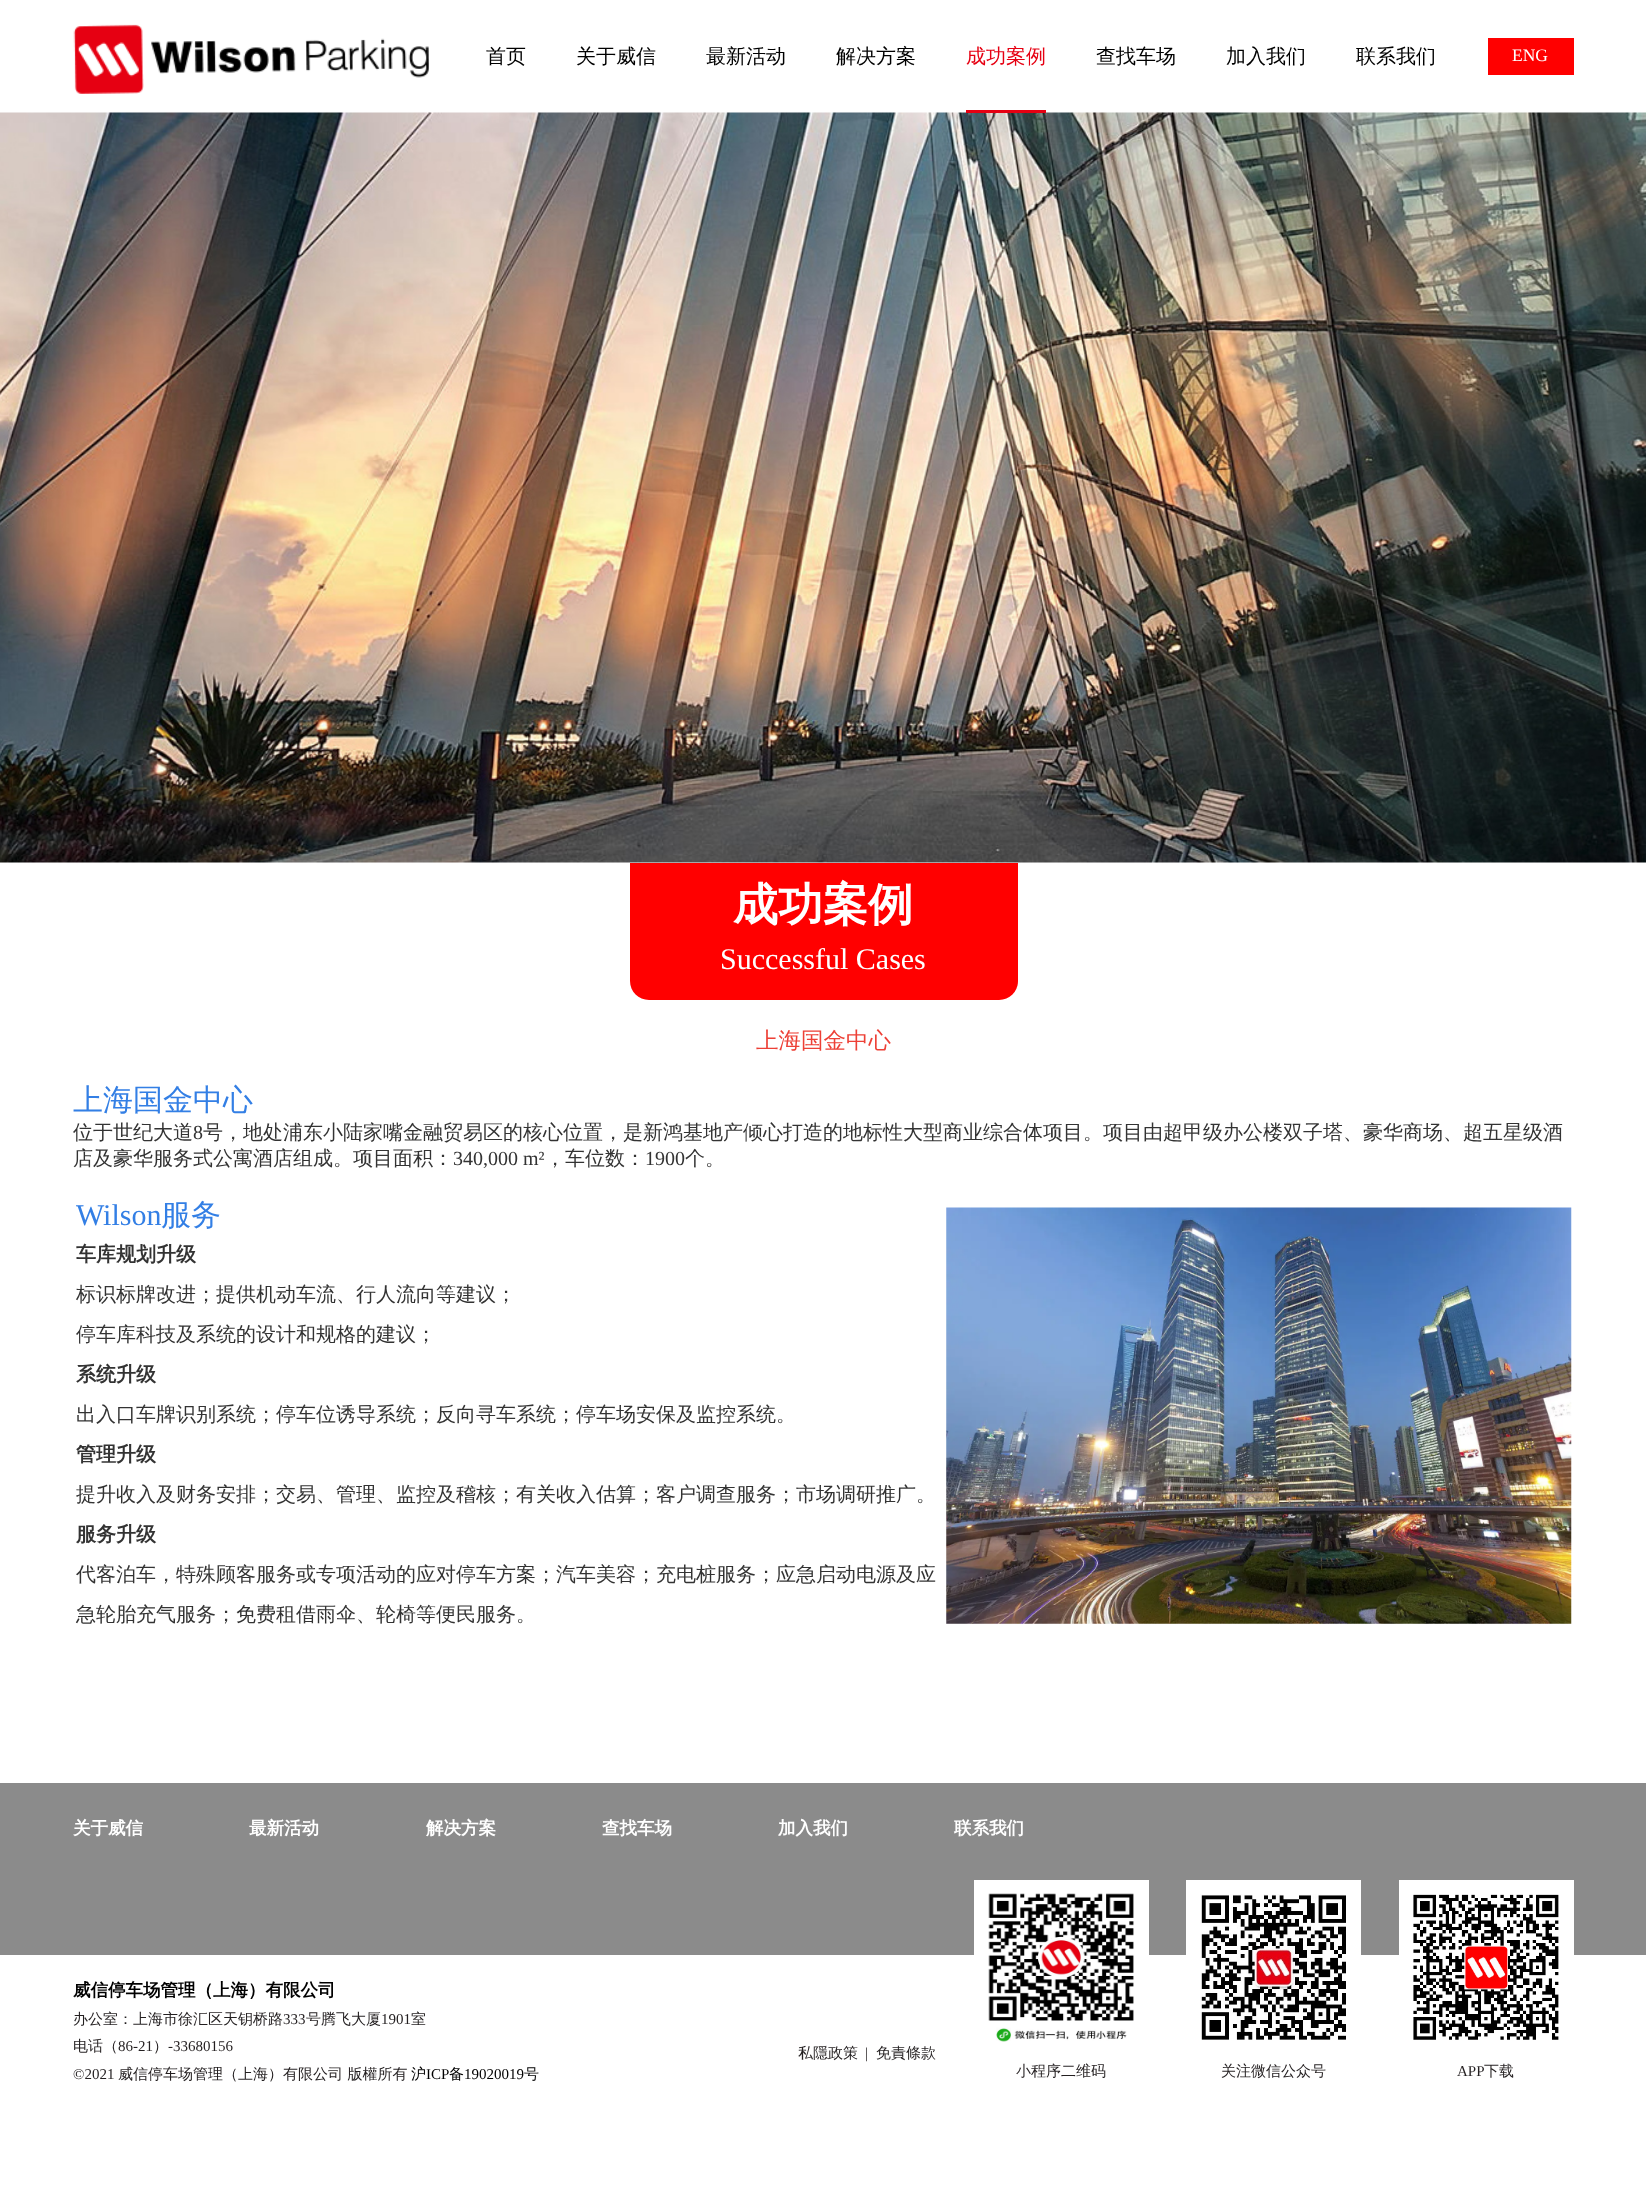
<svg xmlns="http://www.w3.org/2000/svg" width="1646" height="2186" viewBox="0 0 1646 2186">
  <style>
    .t1 { font: 500 20px WenQuanYi Zen Hei; fill: #000; }
    .t2 { font: 500 20px WenQuanYi Zen Hei; fill: #e60012; }
    .t3 { font: 17.5px Liberation Serif; fill: #fff; }
    .t4 { font: bold 45px WenQuanYi Zen Hei; fill: #fff; }
    .t5 { font: 30px Liberation Serif; fill: #fff; }
    .t6 { font: 500 22.5px WenQuanYi Zen Hei; fill: #ed4036; }
    .t7 { font: 500 30px WenQuanYi Zen Hei; fill: #337fe5; }
    .t8 { font: 500 20px WenQuanYi Zen Hei; fill: #333; }
    .t9 { font: 20px Liberation Serif; fill: #333; }
    .t10 { font: 30px Liberation Serif; fill: #337fe5; }
    .t11 { font: bold 20px WenQuanYi Zen Hei; fill: #333; }
    .t12 { font: bold 17.5px WenQuanYi Zen Hei; fill: #fff; }
    .t13 { font: bold 17.5px WenQuanYi Zen Hei; fill: #000; }
    .t14 { font: 500 15px WenQuanYi Zen Hei; fill: #231f20; }
    .t15 { font: 15px Liberation Serif; fill: #231f20; }
    .t16 { font: 500 15px WenQuanYi Zen Hei; fill: #000; }
    .t17 { font: 15px Liberation Serif; fill: #000; }
  </style>
  <rect width="100%" height="100%" fill="#fff"/>
  <image x="73" y="24" width="356" height="70" href="images/1.png"/>
  <text x="486" y="63" class="t1">首页</text>
  <text x="576" y="63" class="t1">关于威信</text>
  <text x="706" y="63" class="t1">最新活动</text>
  <text x="836" y="63" class="t1">解决方案</text>
  <text x="966" y="63" class="t2">成功案例</text>
  <image x="0" y="112" width="1646" height="751" href="images/2.png"/>
  <rect x="966" y="110" width="80" height="3" fill="#e60012"/>
  <text x="1096" y="63" class="t1">查找车场</text>
  <text x="1226" y="63" class="t1">加入我们</text>
  <text x="1356" y="63" class="t1">联系我们</text>
  <rect x="1488" y="38" width="86" height="37" fill="#f00"/>
  <text x="1512" y="61" class="t3">ENG</text>
  <path d="M630 863H1018V981C1018 991.5 1009.5 1000 999 1000H649C638.5 1000 630 991.5 630 981Z" fill="#f00"/>
  <text x="733" y="920" class="t4">成功案例</text>
  <text x="720" y="969" class="t5">Successful Cases</text>
  <text x="756" y="1048" class="t6">上海国金中心</text>
  <text x="73" y="1110" class="t7">上海国金中心</text>
  <text x="73" y="1139" class="t8">位于世纪大道</text>
  <text x="193" y="1139" class="t9">8</text>
  <text x="203" y="1139" class="t8">号，地处浦东小陆家嘴金融贸易区的核心位置，是新鸿基地产倾心打造的地标性大型商业综合体项目。项目由超甲级办公楼双子塔、豪华商场、超五星级酒</text>
  <text x="73" y="1165" class="t8">店及豪华服务式公寓酒店组成。项目面积：</text>
  <text x="453" y="1165" class="t9">340,000 m²</text>
  <text x="545" y="1165" class="t8">，车位数：</text>
  <text x="645" y="1165" class="t9">1900</text>
  <text x="685" y="1165" class="t8">个。</text>
  <text x="76" y="1225" class="t10">Wilson</text>
  <text x="161" y="1225" class="t7">服务</text>
  <text x="76" y="1261" class="t11">车库规划升级</text>
  <text x="76" y="1301" class="t8">标识标牌改进；提供机动车流、行人流向等建议；</text>
  <text x="76" y="1341" class="t8">停车库科技及系统的设计和规格的建议；</text>
  <text x="76" y="1381" class="t11">系统升级</text>
  <text x="76" y="1421" class="t8">出入口车牌识别系统；停车位诱导系统；反向寻车系统；停车场安保及监控系统。</text>
  <text x="76" y="1461" class="t11">管理升级</text>
  <text x="76" y="1501" class="t8">提升收入及财务安排；交易、管理、监控及稽核；有关收入估算；客户调查服务；市场调研推广。</text>
  <text x="76" y="1541" class="t11">服务升级</text>
  <text x="76" y="1581" class="t8">代客泊车，特殊顾客服务或专项活动的应对停车方案；汽车美容；充电桩服务；应急启动电源及应</text>
  <text x="76" y="1621" class="t8">急轮胎充气服务；免费租借雨伞、轮椅等便民服务。</text>
  <image x="946" y="1207" width="626" height="417" href="images/3.png"/>
  <rect x="0" y="1783" width="1646" height="172" fill="#8b8b8b"/>
  <text x="73" y="1834" class="t12">关于威信</text>
  <text x="249" y="1834" class="t12">最新活动</text>
  <text x="426" y="1834" class="t12">解决方案</text>
  <text x="602" y="1834" class="t12">查找车场</text>
  <text x="778" y="1834" class="t12">加入我们</text>
  <text x="954" y="1834" class="t12">联系我们</text>
  <text x="73" y="1996" class="t13">威信停车场管理（上海）有限公司</text>
  <text x="73" y="2024" class="t14">办公室：上海市徐汇区天钥桥路</text>
  <text x="283" y="2024" class="t15">333</text>
  <text x="306" y="2024" class="t14">号腾飞大厦</text>
  <text x="381" y="2024" class="t15">1901</text>
  <text x="411" y="2024" class="t14">室</text>
  <text x="73" y="2051" class="t14">电话（</text>
  <text x="118" y="2051" class="t15">86-21</text>
  <text x="153" y="2051" class="t14">）</text>
  <text x="168" y="2051" class="t15">-33680156</text>
  <text x="73" y="2079" class="t15">©2021</text>
  <text x="118" y="2079" class="t14">威信停车场管理（上海）有限公司 版權所有</text>
  <text x="411" y="2079" class="t16">沪</text>
  <text x="426" y="2079" class="t17">ICP</text>
  <text x="449" y="2079" class="t16">备</text>
  <text x="464" y="2079" class="t17">19020019</text>
  <text x="524" y="2079" class="t16">号</text>
  <text x="798" y="2058" class="t14">私隱政策</text>
  <text x="865" y="2058" class="t15">|</text>
  <text x="876" y="2058" class="t14">免責條款</text>
  <rect x="974" y="1880" width="175" height="75" fill="#fff"/>
  <image x="988" y="1893" width="146" height="149" href="images/4.png"/>
  <text x="1016" y="2076" class="t14">小程序二维码</text>
  <rect x="1186" y="1880" width="175" height="75" fill="#fff"/>
  <image x="1200" y="1894" width="146" height="146" href="images/5.png"/>
  <text x="1221" y="2076" class="t14">关注微信公众号</text>
  <rect x="1399" y="1880" width="175" height="75" fill="#fff"/>
  <image x="1413" y="1894" width="146" height="146" href="images/6.png"/>
  <text x="1457" y="2076" class="t15">APP</text>
  <text x="1484" y="2076" class="t14">下载</text>
</svg>
